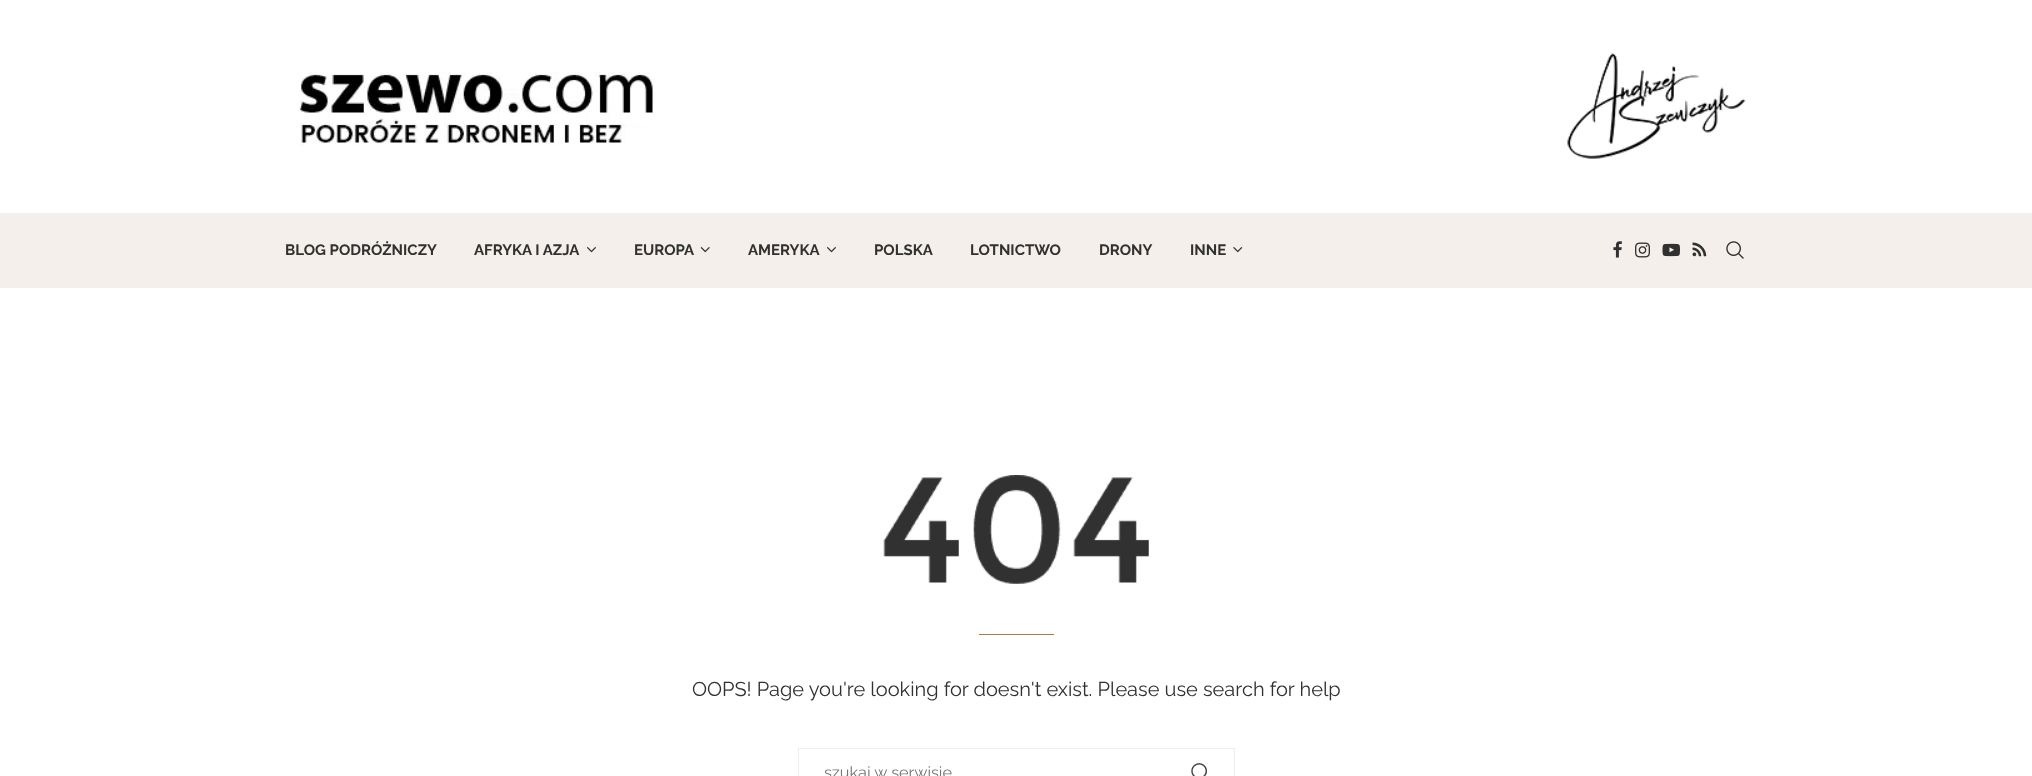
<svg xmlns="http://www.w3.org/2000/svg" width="2032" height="776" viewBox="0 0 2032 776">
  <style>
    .t1 { font: bold 15px Raleway; fill: #313131; }
    .t2 { font: 20px Raleway; fill: #313131; }
    .t3 { font: 16.25px Raleway; fill: #757575; }
  </style>
  <rect width="100%" height="100%" fill="#fff"/>
  <image x="299" y="72" width="356" height="74" href="images/1.png"/>
  <image x="1567" y="53" width="179" height="106" href="images/2.png"/>
  <rect x="0" y="213" width="2032" height="75" fill="#f4efea"/>
  <text x="285" y="255" class="t1">BLOG PODRÓŻNICZY</text>
  <text x="474" y="255" class="t1">AFRYKA I AZJA</text>
  <image x="587" y="247" width="9" height="6" href="images/3.png"/>
  <text x="634" y="255" class="t1">EUROPA</text>
  <image x="700" y="247" width="10" height="6" href="images/4.png"/>
  <text x="748" y="255" class="t1">AMERYKA</text>
  <image x="827" y="247" width="9" height="6" href="images/3.png"/>
  <text x="874" y="255" class="t1">POLSKA</text>
  <text x="970" y="255" class="t1">LOTNICTWO</text>
  <text x="1099" y="255" class="t1">DRONY</text>
  <text x="1190" y="255" class="t1">INNE</text>
  <image x="1233" y="247" width="10" height="6" href="images/5.png"/>
  <image x="1613" y="241" width="9" height="17" href="images/6.png"/>
  <image x="1635" y="242" width="15" height="16" href="images/7.png"/>
  <image x="1662" y="243" width="18" height="14" href="images/8.png"/>
  <image x="1692" y="242" width="15" height="15" href="images/9.png"/>
  <image x="1726" y="241" width="18" height="18" href="images/10.png"/>
  <image x="883" y="475" width="266" height="109" href="images/11.png"/>
  <rect x="979" y="634" width="75" height="1" fill="#a67c52"/>
  <text x="692" y="696" class="t2">OOPS! Page you're looking for doesn't exist. Please use search for help</text>
  <rect x="798.5" y="748.5" width="436" height="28" fill="none" stroke="#eee"/>
  <text x="824" y="778" class="t3">szukaj w serwisie</text>
  <image x="1191" y="763" width="16" height="13" href="images/12.png"/>
</svg>
